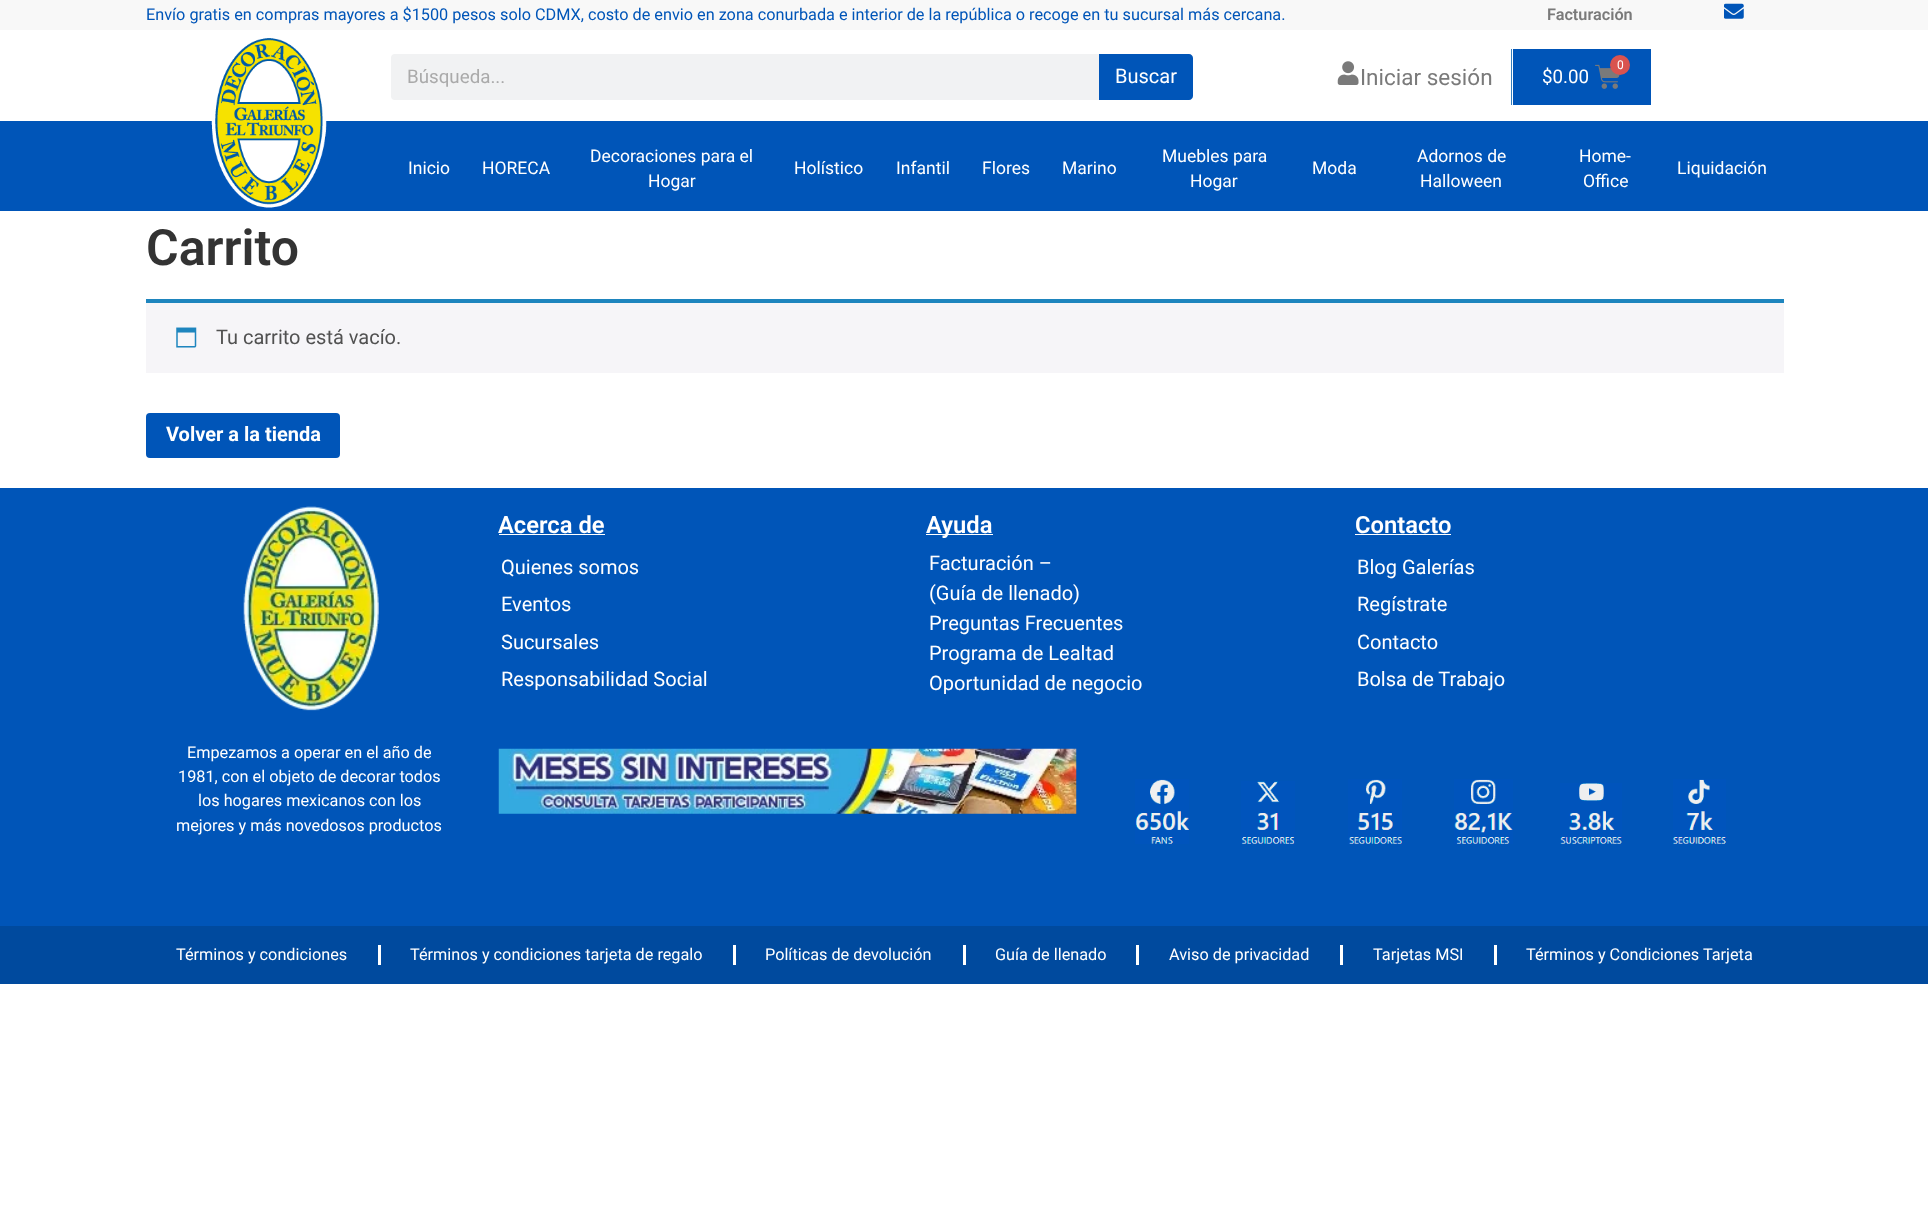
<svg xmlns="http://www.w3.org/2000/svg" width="1928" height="1205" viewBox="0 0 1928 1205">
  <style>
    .t1 { font: 16.25px Roboto; fill: #0055b8; }
    .t2 { font: 600 16.25px Roboto; fill: #7a7a7a; }
    .t3 { font: 18.75px Roboto; fill: #aaa; }
    .t4 { font: 20px Roboto; fill: #fff; }
    .t5 { font: 22.5px Roboto; fill: #7a7a7a; }
    .t6 { font: 12px Roboto; fill: #fff; }
    .t7 { font: 18.75px Roboto; fill: #fff; }
    .t8 { font: 17.5px Roboto; fill: #fff; }
    .t9 { font: 600 50px Roboto; fill: #333; }
    .t10 { font: 20px Roboto; fill: #515151; }
    .t11 { font: bold 20px Roboto; fill: #fff; }
    .t12 { font: 600 23.75px Roboto; fill: #fff; }
    .t13 { font: 16.25px Roboto; fill: #fff; }
  </style>
  <rect width="100%" height="100%" fill="#fff"/>
  <rect x="0" y="0" width="1928" height="30" fill="#f8f8f8"/>
  <text x="146" y="20" class="t1">Envío gratis en compras mayores a $1500 pesos solo CDMX, costo de envio en zona conurbada e interior de la república o recoge en tu sucursal más cercana.</text>
  <text x="1547" y="20" class="t2">Facturación</text>
  <image x="1724" y="3" width="20" height="16" href="images/1.png"/>
  <rect x="0" y="121" width="1928" height="90" fill="#0055b8"/>
  <image x="211" y="38" width="116" height="170" href="images/2.png"/>
  <rect x="391" y="54" width="802" height="46" rx="4" fill="#f1f2f3"/>
  <text x="407" y="83" class="t3">Búsqueda...</text>
  <path d="M1099 54H1189C1191 54 1193 56 1193 58V96C1193 98 1191 100 1189 100H1099Z" fill="#0055b8"/>
  <text x="1115" y="83" class="t4">Buscar</text>
  <rect x="1511" y="49" width="1" height="56" fill="#357ebd"/>
  <image x="1337" y="61" width="22" height="24" href="images/3.png"/>
  <text x="1360" y="85" class="t5">Iniciar sesión</text>
  <rect x="1513" y="49" width="138" height="56" fill="#0055b8"/>
  <image x="1595" y="64" width="25" height="25" href="images/4.png"/>
  <circle cx="1620" cy="65" r="10" fill="#d9534f"/>
  <text x="1617" y="69" class="t6">0</text>
  <text x="1542" y="83" class="t7">$0.00</text>
  <text x="408" y="174" class="t8">Inicio</text>
  <text x="482" y="174" class="t8">HORECA</text>
  <text x="590" y="162" class="t8">Decoraciones para el</text>
  <text x="648" y="187" class="t8">Hogar</text>
  <text x="794" y="174" class="t8">Holístico</text>
  <text x="896" y="174" class="t8">Infantil</text>
  <text x="982" y="174" class="t8">Flores</text>
  <text x="1062" y="174" class="t8">Marino</text>
  <text x="1162" y="162" class="t8">Muebles para</text>
  <text x="1190" y="187" class="t8">Hogar</text>
  <text x="1312" y="174" class="t8">Moda</text>
  <text x="1417" y="162" class="t8">Adornos de</text>
  <text x="1420" y="187" class="t8">Halloween</text>
  <text x="1579" y="162" class="t8">Home-</text>
  <text x="1583" y="187" class="t8">Office</text>
  <text x="1677" y="174" class="t8">Liquidación</text>
  <text x="146" y="265" class="t9">Carrito</text>
  <rect x="146" y="303" width="1638" height="70" fill="#f6f5f8"/>
  <rect x="146" y="299" width="1638" height="4" fill="#1e85be"/>
  <image x="176" y="327" width="21" height="21" href="images/5.png"/>
  <text x="216" y="344" class="t10">Tu carrito está vacío.</text>
  <rect x="146" y="413" width="194" height="45" rx="4" fill="#0055b8"/>
  <text x="166" y="441" class="t11">Volver a la tienda</text>
  <rect x="0" y="488" width="1928" height="438" fill="#0055b8"/>
  <text x="498" y="533" class="t12">Acerca de</text>
  <rect x="499" y="534" width="106" height="1" fill="#fff"/>
  <text x="501" y="574" class="t4">Quienes somos</text>
  <text x="501" y="611" class="t4">Eventos</text>
  <text x="501" y="649" class="t4">Sucursales</text>
  <text x="501" y="686" class="t4">Responsabilidad Social</text>
  <rect x="926" y="534" width="67" height="1" fill="#fff"/>
  <text x="926" y="533" class="t12">Ayuda</text>
  <text x="929" y="570" class="t4">Facturación –</text>
  <text x="929" y="600" class="t4">(Guía de llenado)</text>
  <text x="929" y="630" class="t4">Preguntas Frecuentes</text>
  <text x="929" y="660" class="t4">Programa de Lealtad</text>
  <text x="929" y="690" class="t4">Oportunidad de negocio</text>
  <text x="1355" y="533" class="t12">Contacto</text>
  <rect x="1355" y="534" width="96" height="1" fill="#fff"/>
  <text x="1357" y="574" class="t4">Blog Galerías</text>
  <text x="1357" y="611" class="t4">Regístrate</text>
  <text x="1357" y="649" class="t4">Contacto</text>
  <text x="1357" y="686" class="t4">Bolsa de Trabajo</text>
  <image x="498" y="748" width="579" height="66" href="images/6.png"/>
  <image x="1135" y="779" width="54" height="65" href="images/7.png"/>
  <image x="1241" y="781" width="54" height="63" href="images/8.png"/>
  <image x="1348" y="779" width="54" height="65" href="images/9.png"/>
  <image x="1454" y="779" width="59" height="65" href="images/10.png"/>
  <image x="1560" y="783" width="62" height="61" href="images/11.png"/>
  <image x="1673" y="779" width="53" height="65" href="images/12.png"/>
  <image x="243" y="506" width="136" height="205" href="images/13.png"/>
  <text x="187" y="758" class="t13">Empezamos a operar en el año de</text>
  <text x="178" y="782" class="t13">1981, con el objeto de decorar todos</text>
  <text x="198" y="806" class="t13">los hogares mexicanos con los</text>
  <text x="176" y="831" class="t13">mejores y más novedosos productos</text>
  <rect x="0" y="926" width="1928" height="58" fill="#004a9e"/>
  <text x="176" y="960" class="t13">Términos y condiciones</text>
  <rect x="378" y="945" width="3" height="20" fill="#fff"/>
  <text x="410" y="960" class="t13">Términos y condiciones tarjeta de regalo</text>
  <rect x="733" y="945" width="3" height="20" fill="#fff"/>
  <text x="765" y="960" class="t13">Políticas de devolución</text>
  <rect x="963" y="945" width="3" height="20" fill="#fff"/>
  <text x="995" y="960" class="t13">Guía de llenado</text>
  <rect x="1136" y="945" width="3" height="20" fill="#fff"/>
  <text x="1169" y="960" class="t13">Aviso de privacidad</text>
  <rect x="1340" y="945" width="3" height="20" fill="#fff"/>
  <text x="1373" y="960" class="t13">Tarjetas MSI</text>
  <rect x="1494" y="945" width="3" height="20" fill="#fff"/>
  <text x="1526" y="960" class="t13">Términos y Condiciones Tarjeta</text>
</svg>
